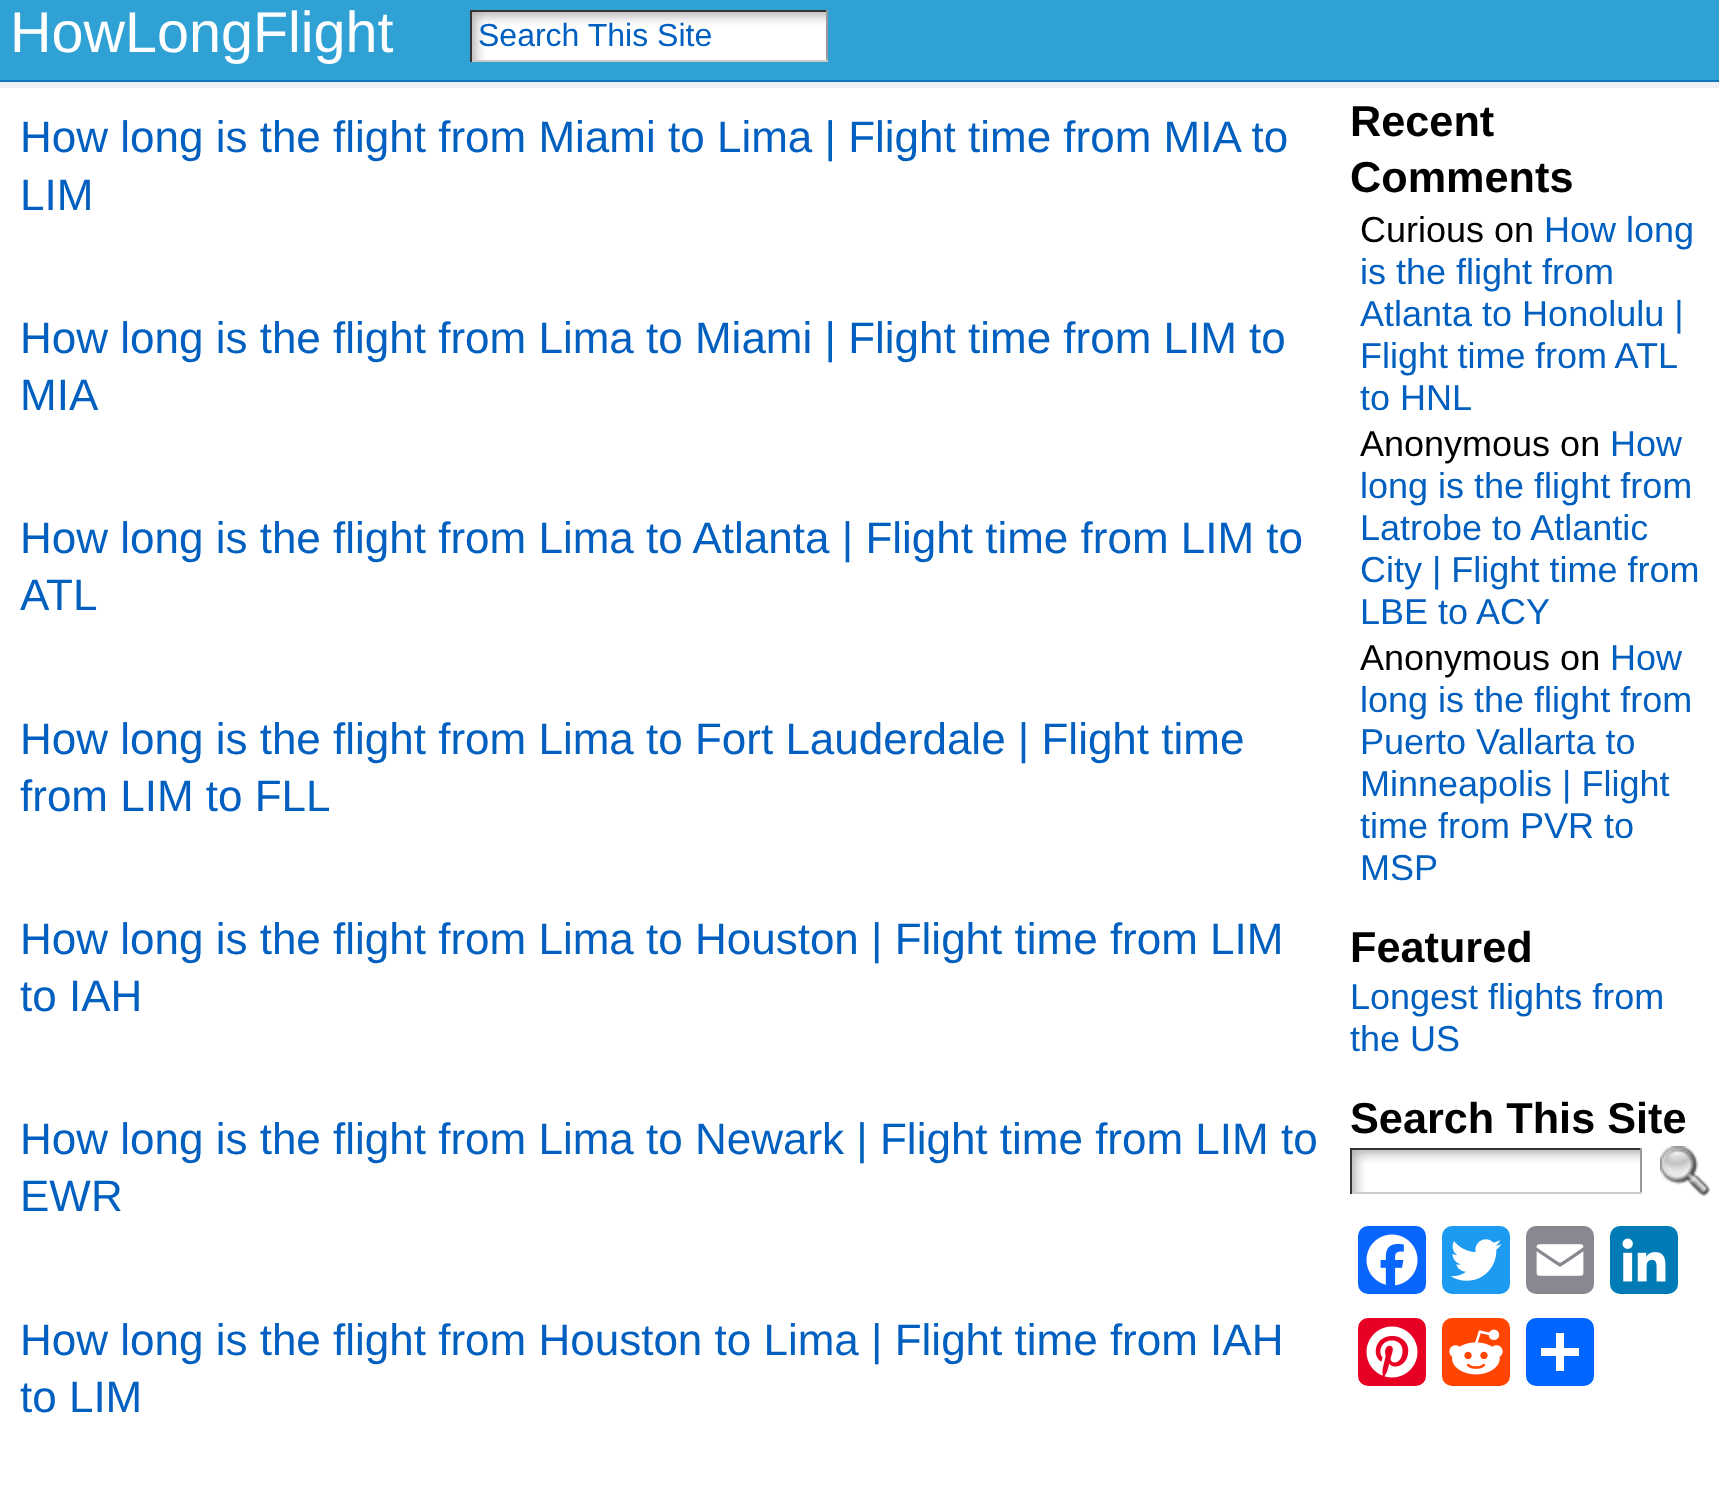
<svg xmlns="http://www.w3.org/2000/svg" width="1719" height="1497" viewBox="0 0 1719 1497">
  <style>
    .t1 { font: 57.5px Liberation Sans; fill: #fff; }
    .t2 { font: 32px Liberation Sans; fill: #005fbf; }
    .t3 { font: 44px Liberation Sans; fill: #005fbf; }
    .t4 { font: bold 43.25px Liberation Sans; fill: #000; }
    .t5 { font: 36px Liberation Sans; fill: #000; }
    .t6 { font: 36px Liberation Sans; fill: #005fbf; }
  </style>
  <rect width="100%" height="100%" fill="#fff"/>
  <rect x="0" y="0" width="1719" height="80" fill="#2fa1d5"/>
  <text x="10" y="52" class="t1">HowLongFlight</text>
  <image x="472" y="12" width="354" height="48" href="images/1.png"/>
  <rect x="470" y="10" width="358" height="2" fill="#333"/>
  <rect x="826" y="10" width="2" height="52" fill="#999"/>
  <rect x="470" y="60" width="358" height="2" fill="#ccc"/>
  <rect x="470" y="10" width="2" height="52" fill="#333"/>
  <text x="478" y="46" class="t2">Search This Site</text>
  <rect x="0" y="80" width="1719" height="2" fill="#1077ba"/>
  <rect x="0" y="82" width="1719" height="6" fill="#f0f0f4"/>
  <text x="20" y="152" class="t3">How long is the flight from Miami to Lima | Flight time from MIA to</text>
  <text x="20" y="210" class="t3">LIM</text>
  <text x="20" y="353" class="t3">How long is the flight from Lima to Miami | Flight time from LIM to</text>
  <text x="20" y="410" class="t3">MIA</text>
  <text x="20" y="553" class="t3">How long is the flight from Lima to Atlanta | Flight time from LIM to</text>
  <text x="20" y="610" class="t3">ATL</text>
  <text x="20" y="754" class="t3">How long is the flight from Lima to Fort Lauderdale | Flight time</text>
  <text x="20" y="811" class="t3">from LIM to FLL</text>
  <text x="20" y="954" class="t3">How long is the flight from Lima to Houston | Flight time from LIM</text>
  <text x="20" y="1011" class="t3">to IAH</text>
  <text x="20" y="1154" class="t3">How long is the flight from Lima to Newark | Flight time from LIM to</text>
  <text x="20" y="1211" class="t3">EWR</text>
  <text x="20" y="1355" class="t3">How long is the flight from Houston to Lima | Flight time from IAH</text>
  <text x="20" y="1412" class="t3">to LIM</text>
  <text x="1350" y="136" class="t4">Recent</text>
  <text x="1350" y="192" class="t4">Comments</text>
  <text x="1360" y="242" class="t5">Curious on</text>
  <text x="1544" y="242" class="t6">How long</text>
  <text x="1360" y="284" class="t6">is the flight from</text>
  <text x="1360" y="326" class="t6">Atlanta to Honolulu |</text>
  <text x="1360" y="368" word-spacing="-0.5" class="t6">Flight time from ATL</text>
  <text x="1360" y="410" class="t6">to HNL</text>
  <text x="1360" y="456" class="t5">Anonymous on</text>
  <text x="1610" y="456" class="t6">How</text>
  <text x="1360" y="498" class="t6">long is the flight from</text>
  <text x="1360" y="540" class="t6">Latrobe to Atlantic</text>
  <text x="1360" y="582" class="t6">City | Flight time from</text>
  <text x="1360" y="624" class="t6">LBE to ACY</text>
  <text x="1360" y="670" class="t5">Anonymous on</text>
  <text x="1610" y="670" class="t6">How</text>
  <text x="1360" y="712" class="t6">long is the flight from</text>
  <text x="1360" y="754" class="t6">Puerto Vallarta to</text>
  <text x="1360" y="796" class="t6">Minneapolis | Flight</text>
  <text x="1360" y="838" class="t6">time from PVR to</text>
  <text x="1360" y="880" class="t6">MSP</text>
  <text x="1350" y="962" class="t4">Featured</text>
  <text x="1350" y="1009" class="t6">Longest flights from</text>
  <text x="1350" y="1051" class="t6">the US</text>
  <text x="1350" y="1133" class="t4">Search This Site</text>
  <image x="1352" y="1150" width="288" height="42" href="images/2.png"/>
  <rect x="1350" y="1148" width="292" height="2" fill="#333"/>
  <rect x="1640" y="1148" width="2" height="46" fill="#999"/>
  <rect x="1350" y="1192" width="292" height="2" fill="#ccc"/>
  <rect x="1350" y="1148" width="2" height="46" fill="#333"/>
  <image x="1660" y="1146" width="50" height="50" href="images/3.png"/>
  <rect x="1358" y="1226" width="68" height="68" rx="10" fill="#0866ff"/>
  <image x="1366" y="1234" width="52" height="52" href="images/4.png"/>
  <rect x="1442" y="1226" width="68" height="68" rx="10" fill="#1d9bf0"/>
  <image x="1450" y="1239" width="52" height="42" href="images/5.png"/>
  <rect x="1526" y="1226" width="68" height="68" rx="10" fill="#888990"/>
  <image x="1536" y="1244" width="48" height="32" href="images/6.png"/>
  <rect x="1610" y="1226" width="68" height="68" rx="10" fill="#007bb5"/>
  <image x="1622" y="1238" width="44" height="44" href="images/7.png"/>
  <rect x="1358" y="1318" width="68" height="68" rx="10" fill="#e60023"/>
  <image x="1366" y="1326" width="52" height="52" href="images/8.png"/>
  <rect x="1442" y="1318" width="68" height="68" rx="10" fill="#ff4500"/>
  <image x="1449" y="1329" width="54" height="46" href="images/9.png"/>
  <rect x="1526" y="1318" width="68" height="68" rx="10" fill="#0166ff"/>
  <rect x="1556" y="1333" width="8" height="38" fill="#fff"/>
  <rect x="1541" y="1348" width="38" height="8" fill="#fff"/>
</svg>
